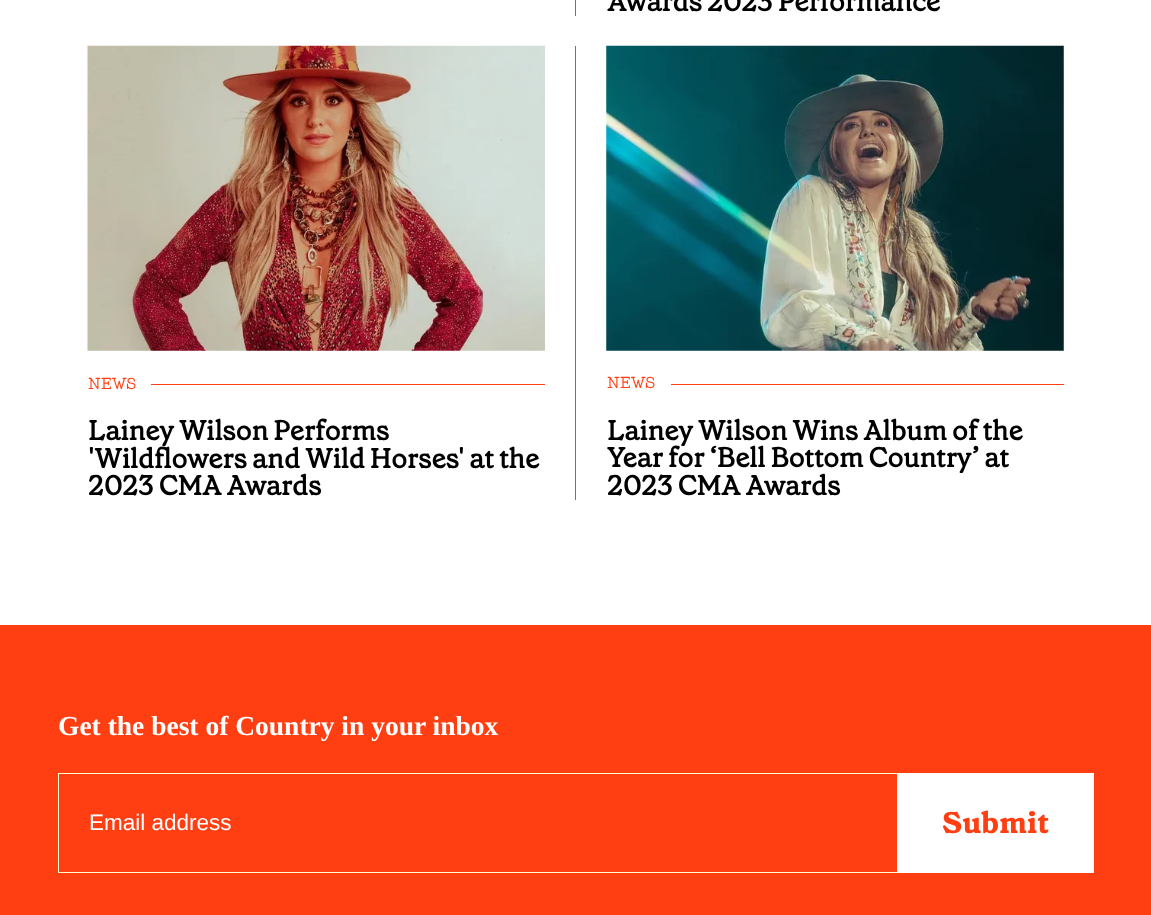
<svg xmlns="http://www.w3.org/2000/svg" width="1151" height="915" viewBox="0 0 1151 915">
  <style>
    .t1 { font: bold 27.5px 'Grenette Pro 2'; fill: #000; }
    .t2 { font: 500 16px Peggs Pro; fill: #ff3f12; }
    .t3 { font: bold 27.5px Liberation Serif; fill: #fff; }
    .t4 { font: 22.5px Liberation Sans; fill: #fff; }
    .t5 { font: bold 30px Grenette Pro; fill: #ff3f12; }
  </style>
  <rect width="100%" height="100%" fill="#fff"/>
  <rect x="575" y="0" width="1" height="16" fill="#ff3f12"/>
  <text x="607" y="11" class="t1">Awards 2023 Performance</text>
  <image x="87" y="45" width="458" height="306" href="images/1.png"/>
  <text x="88" y="389" class="t2">NEWS</text>
  <rect x="151" y="384" width="394" height="1" fill="#ff3f12"/>
  <text x="88" y="440" class="t1">Lainey Wilson Performs</text>
  <text x="88" y="468" class="t1">'Wildflowers and Wild Horses' at the</text>
  <text x="88" y="495" class="t1">2023 CMA Awards</text>
  <rect x="575" y="46" width="1" height="454" fill="#ff3f12"/>
  <image x="606" y="45" width="458" height="306" href="images/2.png"/>
  <text x="607" y="388" class="t2">NEWS</text>
  <rect x="671" y="384" width="393" height="1" fill="#ff3f12"/>
  <text x="607" y="440" class="t1">Lainey Wilson Wins Album of the</text>
  <text x="607" y="467" class="t1">Year for ‘Bell Bottom Country’ at</text>
  <text x="607" y="495" class="t1">2023 CMA Awards</text>
  <rect x="0" y="625" width="1151" height="290" fill="#ff3f12"/>
  <text x="58" y="735" class="t3">Get the best of Country in your inbox</text>
  <rect x="58.5" y="773.5" width="839" height="99" fill="none" stroke="#fffbca"/>
  <text x="89" y="830" class="t4">Email address</text>
  <rect x="898" y="773" width="196" height="100" fill="#fff"/>
  <text x="942" y="833" class="t5">Submit</text>
</svg>
